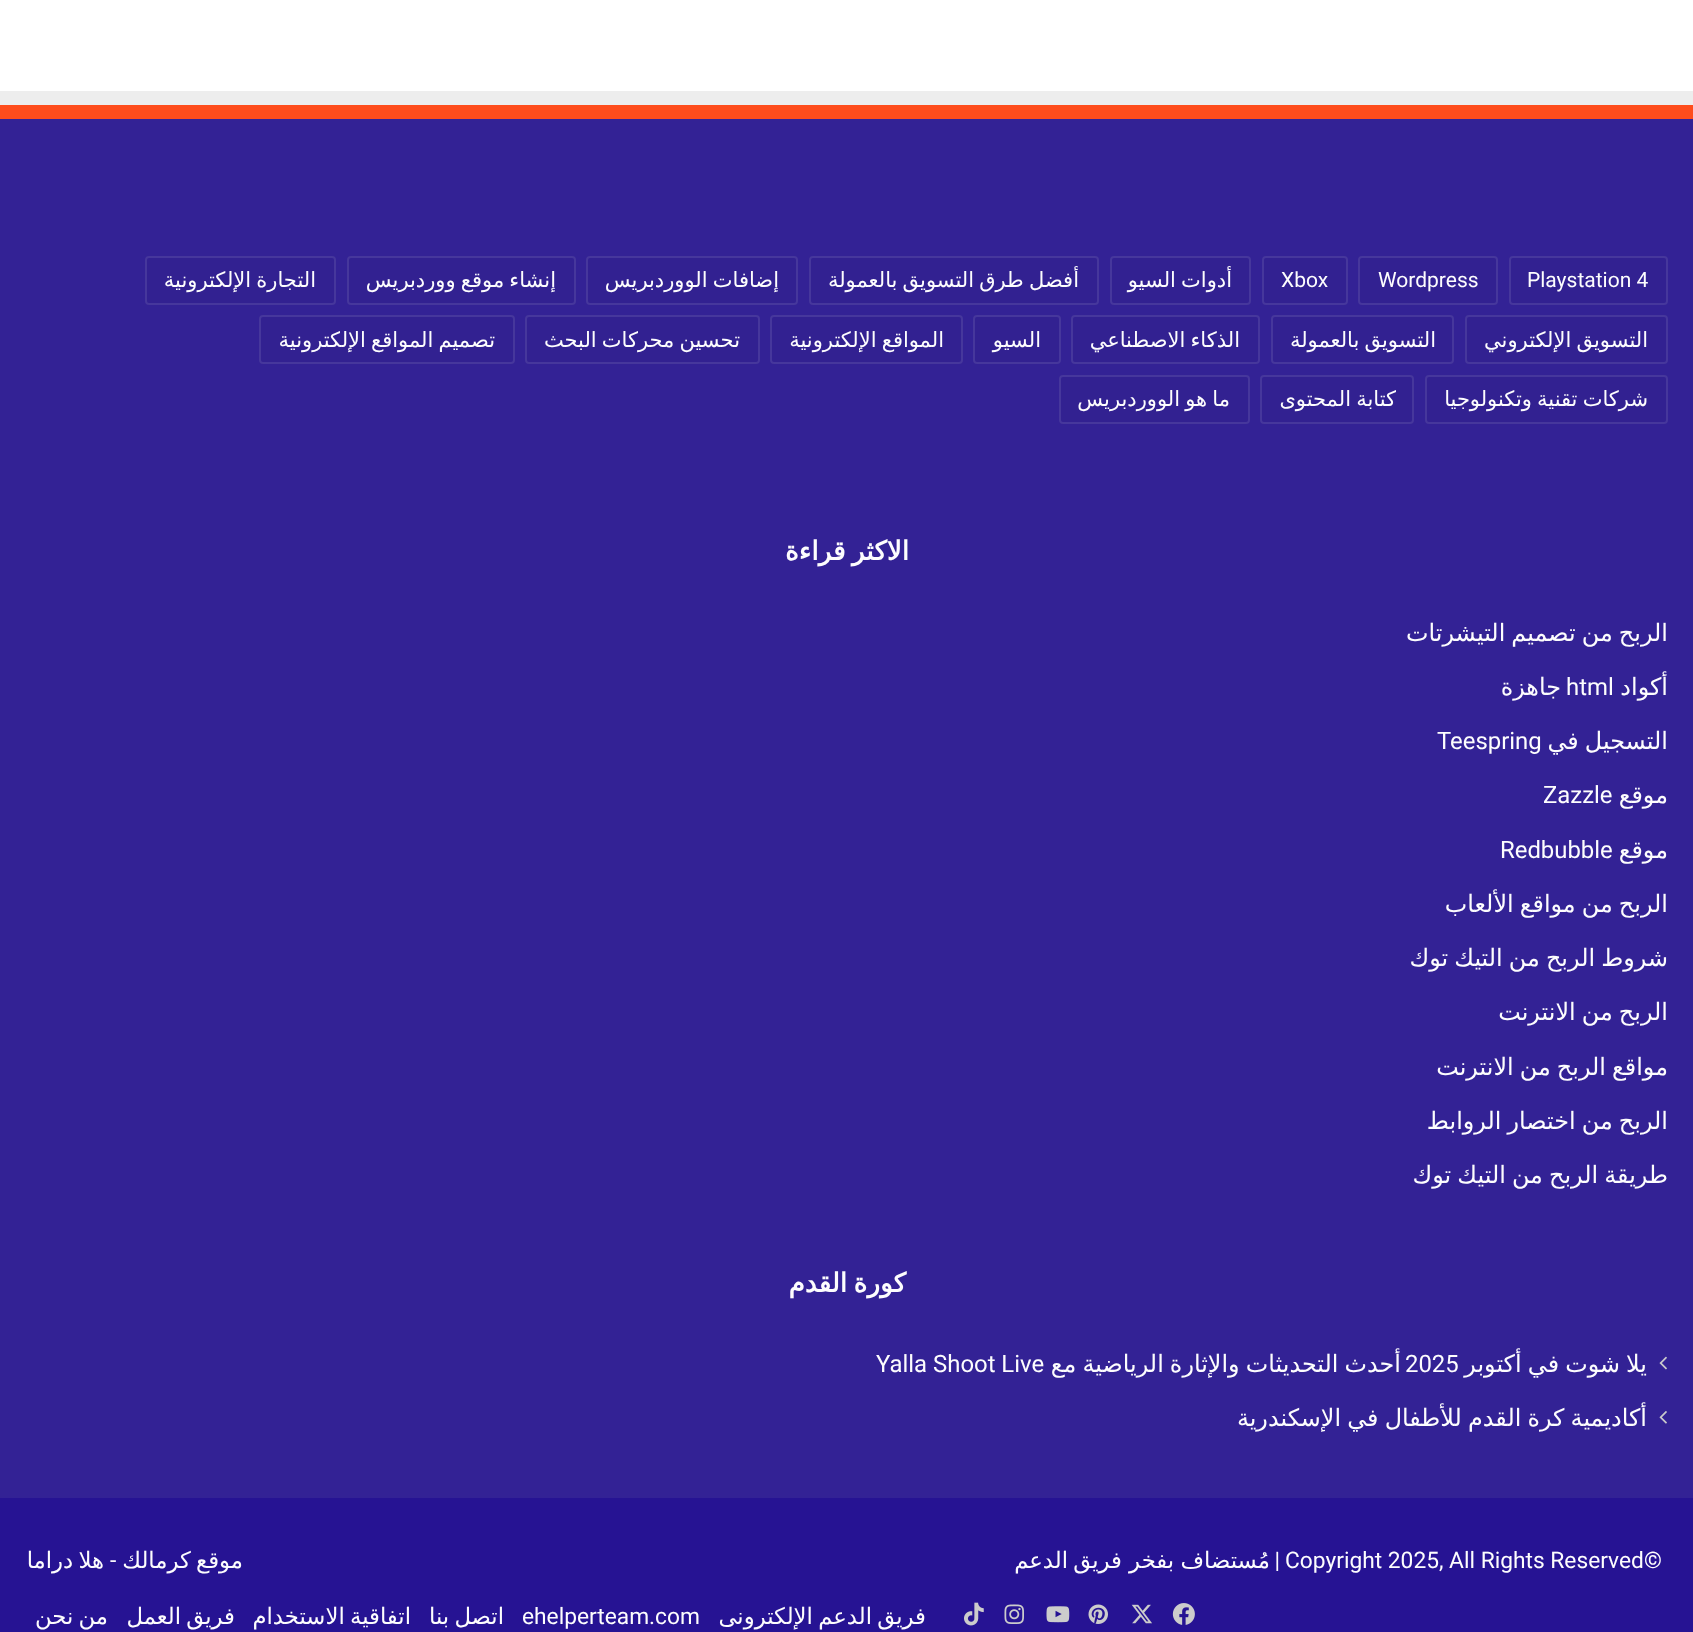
<svg xmlns="http://www.w3.org/2000/svg" width="1693" height="1632" viewBox="0 0 1693 1632">
  <style>
    .t1 { font: 21px Roboto; fill: #fdfdfe; }
    .t2 { font: 21px DejaVu Sans; direction: rtl; fill: #fdfdfe; }
    .t3 { font: bold 26.25px DejaVu Sans; direction: rtl; fill: #fdfdfe; }
    .t4 { font: 23.9px DejaVu Sans; direction: rtl; fill: #fdfdfe; }
    .t5 { font: 23.9px Roboto; fill: #fdfdfe; }
    .t6 { font: 22.75px Roboto; fill: #fdfdfe; }
    .t7 { font: 22.75px Roboto; direction: rtl; fill: #fdfdfe; }
    .t8 { font: 22.75px DejaVu Sans; direction: rtl; fill: #fdfdfe; }
  </style>
  <rect width="100%" height="100%" fill="#fff"/>
  <rect x="0" y="119" width="1693" height="1379" fill="#332295"/>
  <rect x="0" y="91" width="1693" height="14" fill="#ededed"/>
  <rect x="0" y="105" width="1693" height="14" fill="#fe4c1c"/>
  <rect x="1510" y="257" width="157" height="47" rx="3" fill="#322191" stroke="#46379c" stroke-width="2"/>
  <text x="1527" y="287" class="t1">Playstation 4</text>
  <rect x="1359" y="257" width="138" height="47" rx="3" fill="#322191" stroke="#46379c" stroke-width="2"/>
  <text x="1378" y="287" class="t1">Wordpress</text>
  <rect x="1263" y="257" width="84" height="47" rx="3" fill="#322191" stroke="#46379c" stroke-width="2"/>
  <text x="1281" y="287" class="t1">Xbox</text>
  <rect x="1111" y="257" width="139" height="47" rx="3" fill="#322191" stroke="#46379c" stroke-width="2"/>
  <text x="1232" y="287" word-spacing="-1.5" class="t2">أدوات السيو</text>
  <rect x="810" y="257" width="288" height="47" rx="3" fill="#322191" stroke="#46379c" stroke-width="2"/>
  <text x="1079" y="287" word-spacing="-1.5" class="t2">أفضل طرق التسويق بالعمولة</text>
  <rect x="587" y="257" width="210" height="47" rx="3" fill="#322191" stroke="#46379c" stroke-width="2"/>
  <text x="779" y="287" word-spacing="-1.5" class="t2">إضافات الووردبريس</text>
  <rect x="348" y="257" width="227" height="47" rx="3" fill="#322191" stroke="#46379c" stroke-width="2"/>
  <text x="556" y="287" word-spacing="-1.5" class="t2">إنشاء موقع ووردبريس</text>
  <rect x="146" y="257" width="189" height="47" rx="3" fill="#322191" stroke="#46379c" stroke-width="2"/>
  <text x="316" y="287" word-spacing="-1.5" class="t2">التجارة الإلكترونية</text>
  <rect x="1466" y="316" width="201" height="47" rx="3" fill="#322191" stroke="#46379c" stroke-width="2"/>
  <text x="1648" y="347" word-spacing="-1.5" class="t2">التسويق الإلكتروني</text>
  <rect x="1272" y="316" width="181" height="47" rx="3" fill="#322191" stroke="#46379c" stroke-width="2"/>
  <text x="1436" y="347" word-spacing="-1.5" class="t2">التسويق بالعمولة</text>
  <rect x="1072" y="316" width="187" height="47" rx="3" fill="#322191" stroke="#46379c" stroke-width="2"/>
  <text x="1240" y="347" word-spacing="-1.5" class="t2">الذكاء الاصطناعي</text>
  <rect x="974" y="316" width="86" height="47" rx="3" fill="#322191" stroke="#46379c" stroke-width="2"/>
  <text x="1041" y="347" class="t2">السيو</text>
  <rect x="771" y="316" width="191" height="47" rx="3" fill="#322191" stroke="#46379c" stroke-width="2"/>
  <text x="944" y="347" word-spacing="-1.5" class="t2">المواقع الإلكترونية</text>
  <rect x="526" y="316" width="233" height="47" rx="3" fill="#322191" stroke="#46379c" stroke-width="2"/>
  <text x="740" y="347" word-spacing="-1.5" class="t2">تحسين محركات البحث</text>
  <rect x="260" y="316" width="254" height="47" rx="3" fill="#322191" stroke="#46379c" stroke-width="2"/>
  <text x="495" y="347" word-spacing="-1.5" class="t2">تصميم المواقع الإلكترونية</text>
  <rect x="1426" y="376" width="241" height="47" rx="3" fill="#322191" stroke="#46379c" stroke-width="2"/>
  <text x="1648" y="406" word-spacing="-1.5" class="t2">شركات تقنية وتكنولوجيا</text>
  <rect x="1261" y="376" width="152" height="47" rx="3" fill="#322191" stroke="#46379c" stroke-width="2"/>
  <text x="1396" y="406" word-spacing="-1.5" class="t2">كتابة المحتوى</text>
  <rect x="1060" y="376" width="189" height="47" rx="3" fill="#322191" stroke="#46379c" stroke-width="2"/>
  <text x="1230" y="406" word-spacing="-1.5" class="t2">ما هو الووردبريس</text>
  <text x="909" y="560" word-spacing="-2" class="t3">الاكثر قراءة</text>
  <text x="1668" y="641" word-spacing="-1.5" class="t4">الربح من تصميم التيشرتات</text>
  <text x="1668" y="695" class="t4">أكواد</text>
  <text x="1566" y="695" class="t5">html</text>
  <text x="1561" y="695" class="t4">جاهزة</text>
  <text x="1668" y="749" word-spacing="-1.5" class="t4">التسجيل في</text>
  <text x="1437" y="749" class="t5">Teespring</text>
  <text x="1668" y="803" class="t4">موقع</text>
  <text x="1543" y="803" class="t5">Zazzle</text>
  <text x="1668" y="858" class="t4">موقع</text>
  <text x="1500" y="858" class="t5">Redbubble</text>
  <text x="1668" y="912" word-spacing="-1.5" class="t4">الربح من مواقع الألعاب</text>
  <text x="1668" y="966" word-spacing="-1.5" class="t4">شروط الربح من التيك توك</text>
  <text x="1668" y="1020" word-spacing="-1.5" class="t4">الربح من الانترنت</text>
  <text x="1668" y="1075" word-spacing="-1.5" class="t4">مواقع الربح من الانترنت</text>
  <text x="1668" y="1129" word-spacing="-1.5" class="t4">الربح من اختصار الروابط</text>
  <text x="1668" y="1183" word-spacing="-1.5" class="t4">طريقة الربح من التيك توك</text>
  <text x="906" y="1292" word-spacing="-2" class="t3">كورة القدم</text>
  <image x="1659" y="1356" width="8" height="14" href="images/1.png"/>
  <text x="1647" y="1372" word-spacing="-1.5" class="t4">يلا شوت في أكتوبر</text>
  <text x="1405" y="1372" class="t5">2025</text>
  <text x="1401" y="1372" word-spacing="-1.5" class="t4">أحدث التحديثات والإثارة الرياضية مع</text>
  <text x="876" y="1372" class="t5">Yalla Shoot Live</text>
  <image x="1659" y="1411" width="8" height="13" href="images/2.png"/>
  <text x="1647" y="1426" word-spacing="-1.5" class="t4">أكاديمية كرة القدم للأطفال في الإسكندرية</text>
  <rect x="0" y="1498" width="1693" height="134" fill="#261393"/>
  <text x="1285" y="1568" class="t6">Copyright 2025, All Rights Reserved©</text>
  <text x="1280" y="1568" class="t7">|</text>
  <text x="1270" y="1568" word-spacing="-1" class="t8">مُستضاف بفخر</text>
  <text x="1122" y="1568" word-spacing="-2" class="t8">فريق الدعم</text>
  <text x="243" y="1568" word-spacing="-2" class="t8">موقع كرمالك</text>
  <text x="110" y="1568" class="t6">-</text>
  <text x="104" y="1568" word-spacing="-2" class="t8">هلا دراما</text>
  <image x="1172" y="1603" width="23" height="22" href="images/3.png"/>
  <image x="1131" y="1604" width="21" height="20" href="images/4.png"/>
  <image x="1088" y="1604" width="20" height="20" href="images/5.png"/>
  <image x="1046" y="1606" width="24" height="17" href="images/6.png"/>
  <image x="1004" y="1604" width="20" height="20" href="images/7.png"/>
  <image x="964" y="1602" width="20" height="24" href="images/8.png"/>
  <text x="926" y="1624" word-spacing="-2" class="t8">فريق الدعم الإلكترونى</text>
  <text x="522" y="1624" class="t6">ehelperteam.com</text>
  <text x="504" y="1624" word-spacing="-2" class="t8">اتصل بنا</text>
  <text x="411" y="1624" word-spacing="-2" class="t8">اتفاقية الاستخدام</text>
  <text x="235" y="1624" word-spacing="-2" class="t8">فريق العمل</text>
  <text x="108" y="1624" word-spacing="-2" class="t8">من نحن</text>
</svg>
